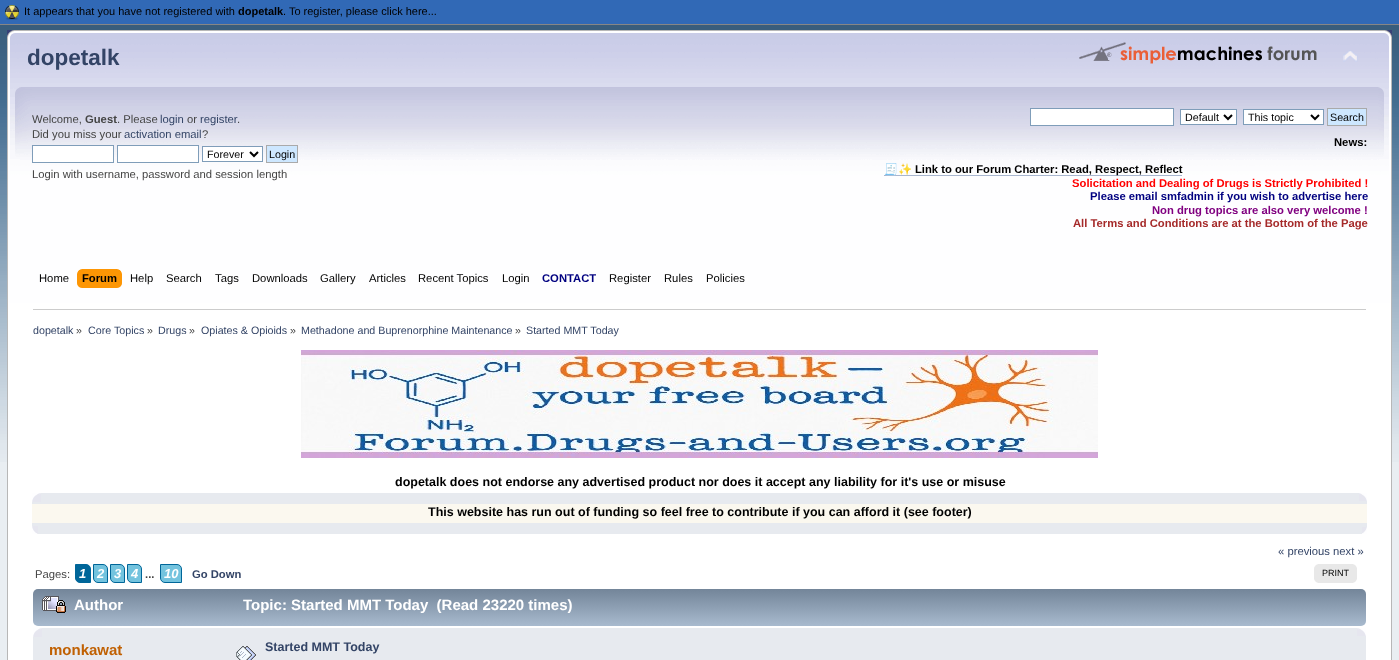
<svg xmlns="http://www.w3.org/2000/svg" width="1399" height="660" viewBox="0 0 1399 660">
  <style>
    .t1 { font: 11px Liberation Sans; fill: #000; }
    .t2 { font: bold 11px Liberation Sans; fill: #000; }
    .t3 { font: 11.25px Liberation Sans; fill: #346; }
    .t4 { font: 11.25px Liberation Sans; fill: #444; }
    .t5 { font: italic bold 13px Liberation Sans; fill: #fff; }
    .t6 { font: bold 11.25px Liberation Sans; fill: #444; }
    .t7 { font: bold 11.25px Liberation Sans; fill: #346; }
    .t8 { font: 9px Liberation Sans; fill: #000; }
    .t9 { font: bold 15px Liberation Sans; fill: #fff; }
    .t10 { font: bold 15px Liberation Sans; fill: #c06002; }
    .t11 { font: bold 12.5px Liberation Sans; fill: #346; }
    .t12 { font: 10.7px Liberation Sans; fill: #346; }
    .t13 { font: 10.7px Liberation Sans; fill: #444; }
    .t14 { font: bold 12.5px Liberation Sans; fill: #000; }
    .t15 { font: bold 22.5px Liberation Sans; fill: #346; }
    .t16 { font: 10.7px Liberation Sans; fill: #000; }
    .t17 { font: bold 11.25px Liberation Sans; fill: #000; }
    .t18 { font: bold 11.25px Noto Color Emoji; fill: #000; }
    .t19 { font: bold 11.25px Liberation Sans; fill: #f00; }
    .t20 { font: bold 11.25px Liberation Sans; fill: #000080; }
    .t21 { font: bold 11.25px Liberation Sans; fill: #800080; }
    .t22 { font: bold 11.25px Liberation Sans; fill: #a52a2a; }
    .t23 { font: 11.25px Liberation Sans; fill: #000; }
  </style>
  <defs>
    <linearGradient id="g1" gradientUnits="userSpaceOnUse" x1="700" y1="589" x2="700" y2="626"><stop offset="0" stop-color="#738599"/><stop offset="1" stop-color="#a8bace"/></linearGradient>
  </defs>
  <rect width="100%" height="100%" fill="#e9eef2"/>
  <image x="0" y="25" width="1399" height="437" href="images/1.png"/>
  <rect x="8" y="303" width="1383" height="357" fill="#fff"/>
  <rect x="7" y="303" width="1" height="357" fill="#b7b7b7"/>
  <rect x="1391" y="303" width="1" height="357" fill="#b7b7b7"/>
  <rect x="0" y="0" width="1399" height="24" fill="#3169b6"/>
  <rect x="0" y="24" width="1399" height="1" fill="#868686"/>
  <image x="5" y="5" width="14" height="15" href="images/2.png"/>
  <text x="24" y="15" class="t1">It appears that you have not registered with</text>
  <text x="238" y="15" class="t2">dopetalk</text>
  <text x="283" y="15" class="t1">. To register, please click here...</text>
  <text x="1278" y="555" class="t3">« previous next »</text>
  <text x="35" y="578" class="t4">Pages:</text>
  <path d="M75.5 564.5H86C88.5 564.5 90.5 566.5 90.5 569V582.5H80C77.5 582.5 75.5 580.5 75.5 578Z" fill="#069" stroke="#069"/>
  <text x="79" y="578" class="t5">1</text>
  <path d="M93.5 564.5H103C105.5 564.5 107.5 566.5 107.5 569V582.5H98C95.5 582.5 93.5 580.5 93.5 578Z" fill="#73c3de" stroke="#069"/>
  <text x="97" y="578" class="t5">2</text>
  <path d="M110.5 564.5H120C122.5 564.5 124.5 566.5 124.5 569V582.5H115C112.5 582.5 110.5 580.5 110.5 578Z" fill="#73c3de" stroke="#069"/>
  <text x="114" y="578" class="t5">3</text>
  <path d="M127.5 564.5H137C139.5 564.5 141.5 566.5 141.5 569V582.5H132C129.5 582.5 127.5 580.5 127.5 578Z" fill="#73c3de" stroke="#069"/>
  <text x="131" y="578" class="t5">4</text>
  <text x="145" y="578" class="t6">...</text>
  <path d="M160.5 564.5H177C179.5 564.5 181.5 566.5 181.5 569V582.5H165C162.5 582.5 160.5 580.5 160.5 578Z" fill="#73c3de" stroke="#069"/>
  <text x="164" y="578" class="t5">10</text>
  <text x="192" y="578" class="t7">Go Down</text>
  <rect x="1318" y="564" width="35" height="19" fill="#e8e8e8"/>
  <image x="1314" y="564" width="4" height="19" href="images/3.png"/>
  <image x="1353" y="564" width="4" height="19" href="images/4.png"/>
  <text x="1322" y="576" class="t8">PRINT</text>
  <rect x="33" y="589" width="1333" height="37" rx="5" fill="url(#g1)"/>
  <image x="42" y="596" width="24" height="17" href="images/5.png"/>
  <text x="74" y="610" class="t9">Author</text>
  <text x="243" y="610" class="t9" xml:space="preserve">Topic: Started MMT Today  (Read 23220 times)</text>
  <rect x="33" y="628" width="1333" height="32" fill="#e7eaef"/>
  <image x="33" y="628" width="9" height="9" href="images/6.png"/>
  <image x="1357" y="628" width="9" height="8" href="images/7.png"/>
  <text x="49" y="655" class="t10">monkawat</text>
  <image x="236" y="646" width="20" height="14" href="images/8.png"/>
  <text x="265" y="651" class="t11">Started MMT Today</text>
  <rect x="33" y="309" width="1333" height="1" fill="#ccc"/>
  <text x="33" y="334" class="t12">dopetalk</text>
  <text x="76" y="334" class="t13">»</text>
  <text x="88" y="334" class="t12">Core Topics</text>
  <text x="147" y="334" class="t13">»</text>
  <text x="158" y="334" class="t12">Drugs</text>
  <text x="189" y="334" class="t13">»</text>
  <text x="201" y="334" class="t12">Opiates &amp; Opioids</text>
  <text x="290" y="334" class="t13">»</text>
  <text x="301" y="334" class="t12">Methadone and Buprenorphine Maintenance</text>
  <text x="515" y="334" class="t13">»</text>
  <text x="526" y="334" class="t12">Started MMT Today</text>
  <image x="301" y="350" width="797" height="108" href="images/9.png"/>
  <text x="395" y="486" class="t14">dopetalk does not endorse any advertised product nor does it accept any liability for it's use or misuse</text>
  <rect x="32" y="493" width="1335" height="41" fill="#e7eaef"/>
  <image x="32" y="493" width="9" height="9" href="images/6.png"/>
  <image x="1359" y="493" width="8" height="8" href="images/10.png"/>
  <rect x="32" y="504" width="1335" height="19" fill="#fbf8ef"/>
  <text x="428" y="516" class="t14">This website has run out of funding so feel free to contribute if you can afford it (see footer)</text>
  <image x="32" y="526" width="6" height="8" href="images/11.png"/>
  <image x="1362" y="527" width="5" height="7" href="images/12.png"/>
  <image x="7" y="30" width="1371" height="273" href="images/13.png"/>
  <image x="1378" y="30" width="14" height="273" href="images/14.png"/>
  <text x="27" y="65" class="t15">dopetalk</text>
  <image x="1079" y="42" width="238" height="22" href="images/15.png"/>
  <image x="1343" y="50" width="15" height="12" href="images/16.png"/>
  <text x="32" y="123" class="t4">Welcome,</text>
  <text x="85" y="123" class="t6">Guest</text>
  <text x="117" y="123" class="t4">. Please</text>
  <text x="160" y="123" class="t3">login</text>
  <text x="187" y="123" class="t4">or</text>
  <text x="200" y="123" class="t3">register</text>
  <text x="237" y="123" class="t4">.</text>
  <text x="32" y="138" class="t4">Did you miss your</text>
  <text x="124" y="138" class="t3">activation email</text>
  <text x="202" y="138" class="t4">?</text>
  <rect x="32.5" y="145.5" width="81" height="17" fill="#fff" stroke="#7f9db9"/>
  <rect x="117.5" y="145.5" width="81" height="17" fill="#fff" stroke="#7f9db9"/>
  <rect x="202.5" y="146.5" width="60" height="15" fill="#fff" stroke="#7f9db9"/>
  <path d="M250 152L254 156L258 152" fill="none" stroke="#000" stroke-width="2"/>
  <text x="207" y="158" class="t16">Forever</text>
  <rect x="266.5" y="145.5" width="31" height="17" fill="#cde7ff" stroke="#aaa"/>
  <text x="269" y="158" class="t16">Login</text>
  <text x="32" y="178" class="t4">Login with username, password and session length</text>
  <rect x="1030.5" y="108.5" width="143" height="17" fill="#fff" stroke="#7f9db9"/>
  <rect x="1180.5" y="109.5" width="56" height="15" fill="#fff" stroke="#7f9db9"/>
  <path d="M1224 115L1228 119L1232 115" fill="none" stroke="#000" stroke-width="2"/>
  <text x="1185" y="121" class="t16">Default</text>
  <rect x="1243.5" y="109.5" width="80" height="15" fill="#fff" stroke="#7f9db9"/>
  <path d="M1311 115L1315 119L1319 115" fill="none" stroke="#000" stroke-width="2"/>
  <text x="1248" y="121" class="t16">This topic</text>
  <rect x="1327.5" y="108.5" width="39" height="17" fill="#cde7ff" stroke="#aaa"/>
  <text x="1330" y="121" class="t16">Search</text>
  <text x="1334" y="146" class="t17">News:</text>
  <rect x="884" y="175" width="298" height="1" fill="#a8b6cf"/>
  <text x="884" y="173" class="t18">🧾✨</text>
  <text x="915" y="173" class="t17">Link to our Forum Charter: Read, Respect, Reflect</text>
  <text x="1072" y="187" class="t19">Solicitation and Dealing of Drugs is Strictly Prohibited !</text>
  <text x="1090" y="200" class="t20">Please email smfadmin if you wish to advertise here</text>
  <text x="1152" y="214" class="t21">Non drug topics are also very welcome !</text>
  <text x="1073" y="227" class="t22">All Terms and Conditions are at the Bottom of the Page</text>
  <text x="39" y="282" class="t23">Home</text>
  <image x="87" y="269" width="35" height="19" href="images/17.png"/>
  <image x="77" y="269" width="10" height="19" href="images/18.png"/>
  <text x="82" y="282" class="t17">Forum</text>
  <text x="130" y="282" class="t23">Help</text>
  <text x="166" y="282" class="t23">Search</text>
  <text x="215" y="282" class="t23">Tags</text>
  <text x="252" y="282" class="t23">Downloads</text>
  <text x="320" y="282" class="t23">Gallery</text>
  <text x="369" y="282" class="t23">Articles</text>
  <text x="418" y="282" class="t23">Recent Topics</text>
  <text x="502" y="282" class="t23">Login</text>
  <text x="542" y="282" class="t20">CONTACT</text>
  <text x="609" y="282" class="t23">Register</text>
  <text x="664" y="282" class="t23">Rules</text>
  <text x="706" y="282" class="t23">Policies</text>
</svg>
